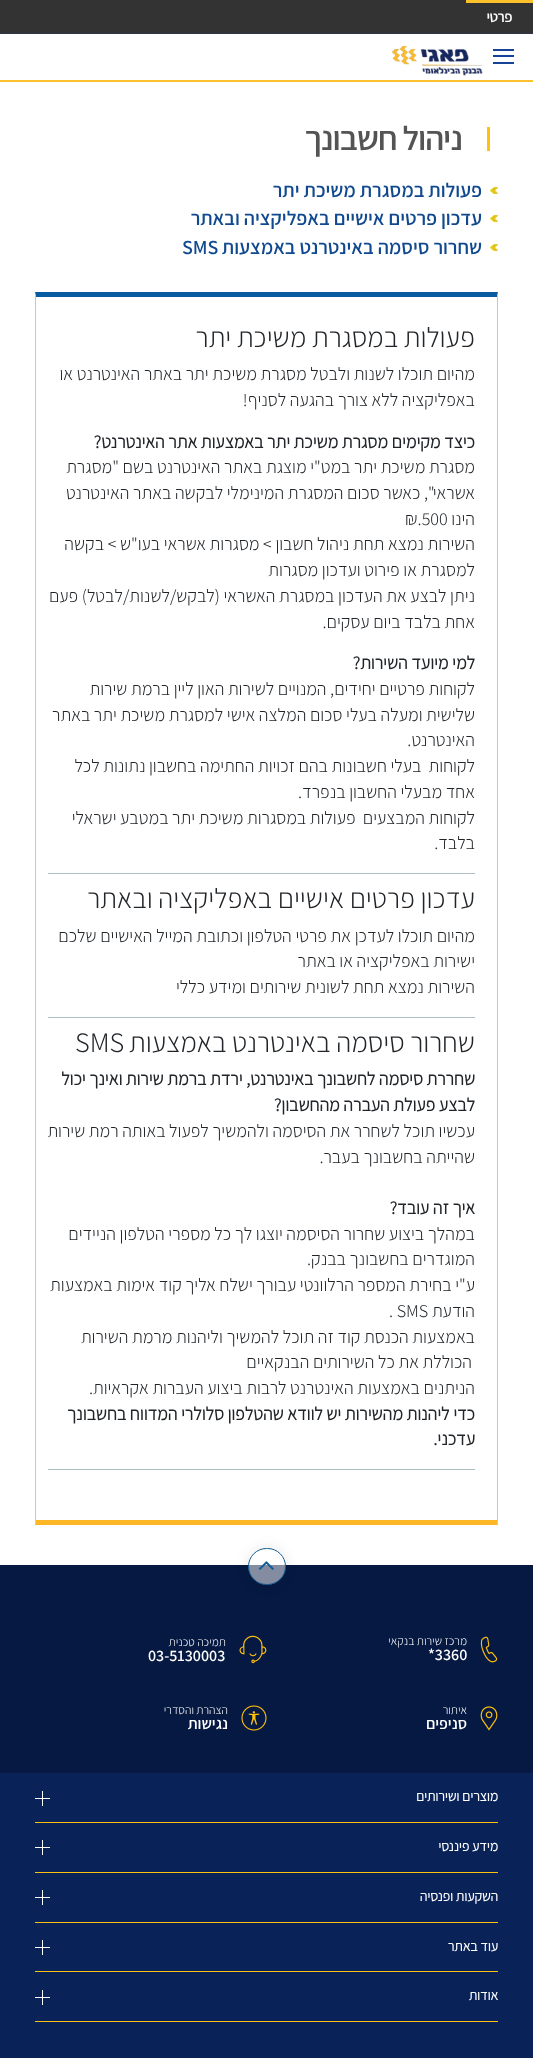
<svg xmlns="http://www.w3.org/2000/svg" width="533" height="2058" viewBox="0 0 533 2058">
  <style>
    .t1 { font: 600 15px Assistant; letter-spacing: -0.5px; direction: rtl; fill: #fff; }
    .t2 { font: 600 34px Assistant; letter-spacing: -1px; direction: rtl; fill: #545454; }
    .t3 { font: 600 20px Assistant; direction: rtl; fill: #10498f; }
    .t4 { font: 600 20px Assistant; fill: #10498f; }
    .t5 { font: 300 28px Assistant; direction: rtl; fill: #212529; }
    .t6 { font: 300 18px Assistant; direction: rtl; fill: #212529; }
    .t7 { font: bold 18px Assistant; direction: rtl; fill: #212529; }
    .t8 { font: 300 18px Assistant; fill: #212529; }
    .t9 { font: 300 28px Assistant; fill: #212529; }
    .t10 { font: 300 12px Assistant; direction: rtl; fill: #fff; }
    .t11 { font: 600 16px Assistant; fill: #fff; }
    .t12 { font: 600 16px Assistant; direction: rtl; fill: #fff; }
    .t13 { font: bold 14px Assistant; direction: rtl; fill: #fff; }
  </style>
  <defs>
    <clipPath id="clip1"><path d="M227 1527H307V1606H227ZM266.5 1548H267.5C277.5 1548 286 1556.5 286 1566.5C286 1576.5 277.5 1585 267.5 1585H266.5C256.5 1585 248 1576.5 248 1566.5C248 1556.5 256.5 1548 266.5 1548Z" clip-rule="evenodd"/></clipPath>
  </defs>
  <rect width="100%" height="100%" fill="#fff"/>
  <rect x="0" y="0" width="533" height="33" fill="#333"/>
  <rect x="0" y="33" width="533" height="1" fill="#2b364b"/>
  <rect x="466" y="0" width="67" height="3" fill="#ffc22c"/>
  <text x="512" y="22" class="t1">פרטי</text>
  <rect x="0" y="80" width="533" height="2" fill="#ffc22c"/>
  <rect x="493" y="49" width="21" height="2" fill="#174297"/>
  <rect x="493" y="55" width="21" height="2" fill="#174297"/>
  <rect x="493" y="62" width="21" height="2" fill="#174297"/>
  <image x="392" y="46" width="91" height="30" href="images/1.png"/>
  <rect x="487" y="127" width="3" height="24" fill="#ffc10e"/>
  <text x="462" y="150" class="t2">ניהול חשבונך</text>
  <image x="490" y="187" width="8" height="7" href="images/2.png"/>
  <text x="482" y="197" class="t3">פעולות במסגרת משיכת יתר</text>
  <image x="490" y="215" width="8" height="7" href="images/2.png"/>
  <text x="482" y="225" class="t3">עדכון פרטים אישיים באפליקציה ובאתר</text>
  <image x="490" y="244" width="8" height="7" href="images/2.png"/>
  <text x="482" y="254" class="t3">שחרור סיסמה באינטרנט באמצעות</text>
  <text x="182" y="254" class="t4">SMS</text>
  <path d="M35 292H498L497 297H36Z" fill="#075ca1"/>
  <path d="M498 292V1525L497 1520V297Z" fill="#bbc9d1"/>
  <path d="M498 1525H35L36 1520H497Z" fill="#fdb726"/>
  <path d="M35 1525V292L36 297V1520Z" fill="#bbc9d1"/>
  <rect x="48" y="873" width="427" height="1" fill="#adc0c4"/>
  <text x="475" y="347" class="t5">פעולות במסגרת משיכת יתר</text>
  <text x="475" y="380" class="t6">מהיום תוכלו לשנות ולבטל מסגרת משיכת יתר באתר האינטרנט או</text>
  <text x="475" y="406" class="t6">באפליקציה ללא צורך בהגעה לסניף!</text>
  <text x="475" y="448" class="t7">כיצד מקימים מסגרת משיכת יתר באמצעות אתר האינטרנט?</text>
  <text x="475" y="473" class="t6">מסגרת משיכת יתר במט"י מוצגת באתר האינטרנט בשם "מסגרת</text>
  <text x="475" y="499" class="t6">אשראי", כאשר סכום המסגרת המינימלי לבקשה באתר האינטרנט</text>
  <text x="475" y="525" class="t6">הינו</text>
  <text x="405" y="525" class="t8">₪.500</text>
  <text x="475" y="550" class="t6">השירות נמצא תחת ניהול חשבון &gt; מסגרות אשראי בעו"ש &gt; בקשה</text>
  <text x="475" y="576" class="t6">למסגרת או פירוט ועדכון מסגרות</text>
  <text x="475" y="602" class="t6">ניתן לבצע את העדכון במסגרת האשראי (לבקש/לשנות/לבטל) פעם</text>
  <text x="475" y="628" class="t6">אחת בלבד ביום עסקים.</text>
  <text x="475" y="669" class="t7">למי מיועד השירות?</text>
  <text x="475" y="695" class="t6">לקוחות פרטיים יחידים, המנויים לשירות האון ליין ברמת שירות</text>
  <text x="475" y="721" class="t6">שלישית ומעלה בעלי סכום המלצה אישי למסגרת משיכת יתר באתר</text>
  <text x="475" y="746" class="t6">האינטרנט.</text>
  <text x="475" y="772" class="t6" xml:space="preserve">לקוחות  בעלי חשבונות בהם זכויות החתימה בחשבון נתונות לכל</text>
  <text x="475" y="798" class="t6">אחד מבעלי החשבון בנפרד.</text>
  <text x="475" y="824" class="t6" xml:space="preserve">לקוחות המבצעים  פעולות במסגרות משיכת יתר במטבע ישראלי</text>
  <text x="475" y="849" class="t6">בלבד.</text>
  <rect x="48" y="1017" width="427" height="1" fill="#adc0c4"/>
  <text x="475" y="908" class="t5">עדכון פרטים אישיים באפליקציה ובאתר</text>
  <text x="475" y="942" class="t6">מהיום תוכלו לעדכן את פרטי הטלפון וכתובת המייל האישיים שלכם</text>
  <text x="475" y="967" class="t6">ישירות באפליקציה או באתר</text>
  <text x="475" y="993" class="t6">השירות נמצא תחת לשונית שירותים ומידע כללי</text>
  <rect x="48" y="1469" width="427" height="1" fill="#adc0c4"/>
  <text x="475" y="1052" class="t5">שחרור סיסמה באינטרנט באמצעות</text>
  <text x="75" y="1052" class="t9">SMS</text>
  <text x="475" y="1085" class="t7">שחררת סיסמה לחשבונך באינטרנט, ירדת ברמת שירות ואינך יכול</text>
  <text x="475" y="1111" class="t7">לבצע פעולת העברה מהחשבון?</text>
  <text x="475" y="1137" class="t6">עכשיו תוכל לשחרר את הסיסמה ולהמשיך לפעול באותה רמת שירות</text>
  <text x="475" y="1163" class="t6">שהייתה בחשבונך בעבר.</text>
  <text x="475" y="1214" class="t7">איך זה עובד?</text>
  <text x="475" y="1240" class="t6">במהלך ביצוע שחרור הסיסמה יוצגו לך כל מספרי הטלפון הניידים</text>
  <text x="475" y="1265" class="t6">המוגדרים בחשבונך בבנק.</text>
  <text x="475" y="1291" class="t6">ע"י בחירת המספר הרלוונטי עבורך ישלח אליך קוד אימות באמצעות</text>
  <text x="475" y="1317" class="t6">הודעת</text>
  <text x="389" y="1317" class="t8">. SMS</text>
  <text x="475" y="1343" class="t6">באמצעות הכנסת קוד זה תוכל להמשיך וליהנות מרמת השירות</text>
  <text x="472" y="1368" class="t6">הכוללת את כל השירותים הבנקאיים</text>
  <text x="475" y="1394" class="t6">הניתנים באמצעות האינטרנט לרבות ביצוע העברות אקראיות.</text>
  <text x="475" y="1420" class="t7">כדי ליהנות מהשירות יש לוודא שהטלפון סלולרי המדווח בחשבונך</text>
  <text x="475" y="1445" class="t7">עדכני.</text>
  <rect x="0" y="1773" width="533" height="285" fill="#092359"/>
  <rect x="0" y="1565" width="533" height="208" fill="#061942"/>
  <image x="480" y="1636" width="18" height="27" href="images/3.png"/>
  <text x="467" y="1645" class="t10">מרכז שירות בנקאי</text>
  <text x="428" y="1660" class="t11">*3360</text>
  <image x="239" y="1635" width="28" height="29" href="images/4.png"/>
  <text x="226" y="1646" class="t10">תמיכה טכנית</text>
  <text x="148" y="1661" class="t11">03-5130003</text>
  <image x="480" y="1706" width="18" height="25" href="images/5.png"/>
  <text x="467" y="1714" class="t10">איתור</text>
  <text x="467" y="1729" class="t12">סניפים</text>
  <image x="241" y="1705" width="26" height="26" href="images/6.png"/>
  <text x="228" y="1714" class="t10">הצהרת והסדרי</text>
  <text x="228" y="1729" class="t12">נגישות</text>
  <g clip-path="url(#clip1)">
    <rect x="248" y="1548" width="38" height="37" rx="18.5" fill="#0000001a" filter="blur(6.5px)"/>
  </g>
  <rect x="248.5" y="1548.5" width="37" height="36" rx="18" fill="#ffffff80" stroke="#145d95"/>
  <image x="258" y="1561" width="16" height="9" href="images/7.png"/>
  <rect x="35" y="1822" width="463" height="1" fill="#ffc10e"/>
  <text x="498" y="1801" class="t13">מוצרים ושירותים</text>
  <rect x="35" y="1798" width="15" height="1" fill="#fff"/>
  <rect x="42" y="1791" width="1" height="15" fill="#fff"/>
  <rect x="35" y="1872" width="463" height="1" fill="#ffc10e"/>
  <text x="498" y="1851" class="t13">מידע פיננסי</text>
  <rect x="35" y="1847" width="15" height="1" fill="#fff"/>
  <rect x="42" y="1840" width="1" height="15" fill="#fff"/>
  <rect x="35" y="1922" width="463" height="1" fill="#ffc10e"/>
  <text x="498" y="1901" class="t13">השקעות ופנסיה</text>
  <rect x="35" y="1897" width="15" height="1" fill="#fff"/>
  <rect x="42" y="1890" width="1" height="15" fill="#fff"/>
  <rect x="35" y="1971" width="463" height="1" fill="#ffc10e"/>
  <text x="498" y="1951" class="t13">עוד באתר</text>
  <rect x="35" y="1947" width="15" height="1" fill="#fff"/>
  <rect x="42" y="1940" width="1" height="15" fill="#fff"/>
  <rect x="35" y="2021" width="463" height="1" fill="#ffc10e"/>
  <text x="498" y="2000" class="t13">אודות</text>
  <rect x="35" y="1997" width="15" height="1" fill="#fff"/>
  <rect x="42" y="1990" width="1" height="15" fill="#fff"/>
</svg>
